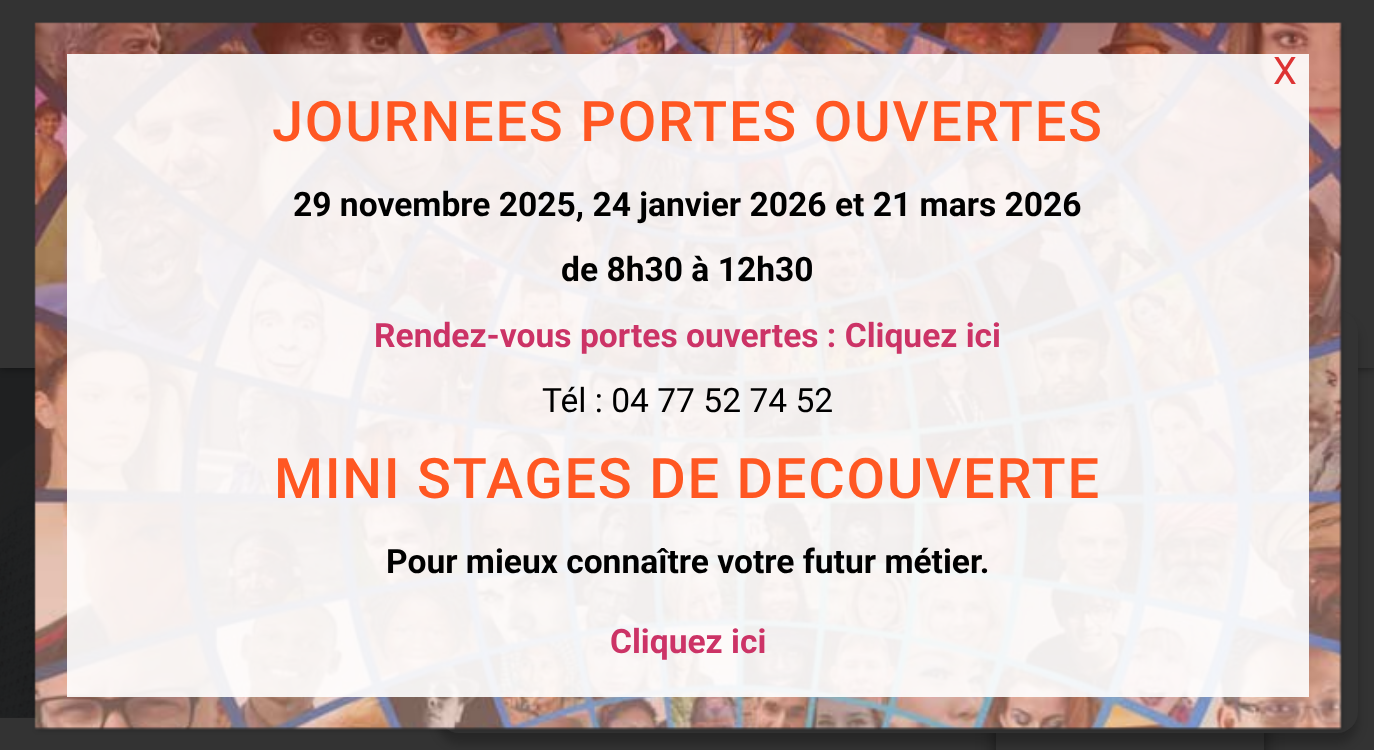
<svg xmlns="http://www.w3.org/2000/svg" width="1374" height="750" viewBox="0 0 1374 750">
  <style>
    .t1 { font: 38px Roboto; fill: #d33; }
    .t2 { font: 500 56px Roboto; letter-spacing: 1.75px; fill: #ff5722; }
    .t3 { font: bold 33.6px Roboto; fill: #000; }
    .t4 { font: bold 33.6px Roboto; fill: #c36; }
    .t5 { font: 33.6px Roboto; fill: #000; }
  </style>
  <defs>
    <clipPath id="clip1"><path d="M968 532H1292V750H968ZM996 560H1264V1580H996Z" clip-rule="evenodd"/></clipPath>
  </defs>
  <rect width="100%" height="100%" fill="#333"/>
  <rect x="0" y="717" width="36" height="1" fill="#222223"/>
  <image x="0" y="368" width="36" height="350" href="images/2.png"/>
  <rect x="0" y="0" width="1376" height="368" fill="#00000080" filter="blur(4.5px)"/>
  <rect x="0" y="0" width="1374" height="368" fill="#333"/>
  <g clip-path="url(#clip1)">
    <rect x="996" y="560" width="268" height="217" fill="#00000080" filter="blur(9px)"/>
  </g>
  <rect x="1263" y="733" width="1" height="17" fill="#333333e6"/>
  <rect x="438" y="320" width="920" height="424" rx="21" fill="#0000003b" filter="blur(5px)"/>
  <rect x="438" y="310" width="920" height="423" rx="21" fill="#333"/>
  <rect x="37" y="25" width="1305" height="705" fill="#0202023b" filter="blur(2.5px)"/>
  <image x="34" y="22" width="1308" height="708" href="images/1.png"/>
  <rect x="67" y="54" width="1242" height="643" fill="#ffffffe6"/>
  <text x="1273" y="84" class="t1">X</text>
  <text x="272" y="141" class="t2">JOURNEES PORTES OUVERTES</text>
  <text x="293" y="216" class="t3">29 novembre 2025, 24 janvier 2026 et 21 mars 2026</text>
  <text x="561" y="281" class="t3">de 8h30 à 12h30</text>
  <text x="374" y="347" class="t4">Rendez-vous portes ouvertes : Cliquez ici</text>
  <text x="542" y="412" class="t5">Tél : 04 77 52 74 52</text>
  <text x="274" y="498" class="t2">MINI STAGES DE DECOUVERTE</text>
  <text x="386" y="573" class="t3">Pour mieux connaître votre futur métier.</text>
  <text x="610" y="653" class="t4">Cliquez ici</text>
</svg>
